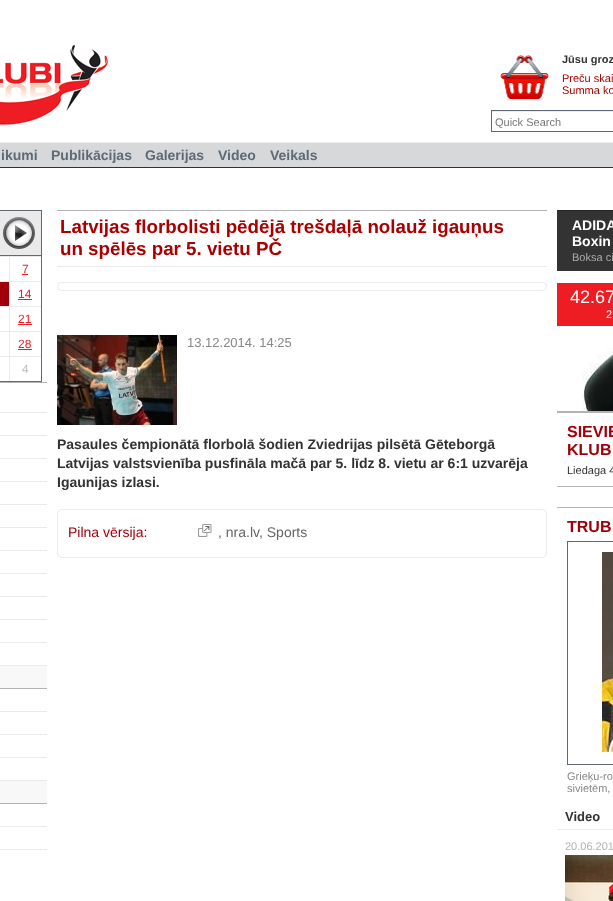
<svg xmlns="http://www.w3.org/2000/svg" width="613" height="901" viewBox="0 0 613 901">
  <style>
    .t1 { font: bold 11px Liberation Sans; fill: #333; }
    .t2 { font: 11px Liberation Sans; fill: #a00; }
    .t3 { font: 11px Liberation Sans; fill: #777; }
    .t4 { font: bold 14px Liberation Sans; fill: #5f6a77; }
    .t5 { font: 12px Liberation Sans; fill: #ee1d23; }
    .t6 { font: 12px Liberation Sans; fill: #bdbdbd; }
    .t7 { font: bold 18.75px Liberation Sans; fill: #a00; }
    .t8 { font: 13px Liberation Sans; fill: #888; }
    .t9 { font: bold 14px Liberation Sans; fill: #333; }
    .t10 { font: 14px Liberation Sans; fill: #a0000a; }
    .t11 { font: 14px Liberation Sans; fill: #656565; }
    .t12 { font: bold 14px Liberation Sans; fill: #fff; }
    .t13 { font: 18px Liberation Sans; fill: #fff; }
    .t14 { font: 11px Liberation Sans; fill: #fff; }
    .t15 { font: 11px Liberation Sans; fill: #aaa; }
    .t16 { font: bold 16px Liberation Sans; fill: #a0000a; }
    .t17 { font: 11px Liberation Sans; fill: #333; }
    .t18 { font: 11px Liberation Sans; fill: #888; }
    .t19 { font: bold 13px Liberation Sans; fill: #333; }
    .t20 { font: 11px Liberation Sans; fill: #b3b3b3; }
  </style>
  <rect width="100%" height="100%" fill="#fff"/>
  <rect x="557" y="211" width="56" height="60" fill="#333"/>
  <image x="0" y="45" width="108" height="80" href="images/1.png"/>
  <rect x="491.5" y="110.5" width="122" height="21" fill="none" stroke="#5f6a77"/>
  <image x="500" y="55" width="49" height="46" href="images/2.png"/>
  <text x="562" y="63" class="t1">Jūsu groz</text>
  <text x="562" y="82" class="t2">Preču skai</text>
  <text x="562" y="94" class="t2">Summa ko</text>
  <rect x="492" y="111" width="121" height="1" fill="#ededed"/>
  <text x="495" y="126" class="t3">Quick Search</text>
  <rect x="0" y="143" width="613" height="24" fill="#d6d8d9"/>
  <rect x="0" y="142" width="613" height="1" fill="#eee"/>
  <rect x="0" y="167" width="613" height="1" fill="#a0000a"/>
  <text x="1" y="160" class="t4">ikumi</text>
  <text x="51" y="160" class="t4">Publikācijas</text>
  <text x="145" y="160" class="t4">Galerijas</text>
  <text x="218" y="160" class="t4">Video</text>
  <text x="270" y="160" class="t4">Veikals</text>
  <rect x="-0.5" y="210.5" width="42" height="171" fill="none" stroke="#5f6a77"/>
  <rect x="0" y="211" width="41" height="44" fill="#eaeaea"/>
  <rect x="0" y="255" width="41" height="1" fill="#5f6a77"/>
  <image x="3" y="217" width="32" height="32" href="images/3.png"/>
  <rect x="0" y="256" width="41" height="1" fill="#eaeaea"/>
  <rect x="9" y="256" width="1" height="25" fill="#eaeaea"/>
  <text x="22" y="273" class="t5">7</text>
  <rect x="22" y="274" width="6" height="1" fill="#ee1d23"/>
  <rect x="0" y="282" width="9" height="24" fill="#a0000a"/>
  <rect x="0" y="281" width="41" height="1" fill="#eaeaea"/>
  <rect x="9" y="281" width="1" height="25" fill="#eaeaea"/>
  <text x="18" y="298" class="t5">14</text>
  <rect x="18" y="299" width="14" height="1" fill="#ee1d23"/>
  <rect x="0" y="306" width="41" height="1" fill="#eaeaea"/>
  <rect x="9" y="306" width="1" height="25" fill="#eaeaea"/>
  <text x="18" y="323" class="t5">21</text>
  <rect x="18" y="324" width="14" height="1" fill="#ee1d23"/>
  <rect x="0" y="331" width="41" height="1" fill="#eaeaea"/>
  <rect x="9" y="331" width="1" height="25" fill="#eaeaea"/>
  <text x="18" y="348" class="t5">28</text>
  <rect x="18" y="349" width="14" height="1" fill="#ee1d23"/>
  <rect x="0" y="356" width="41" height="1" fill="#eaeaea"/>
  <rect x="9" y="356" width="1" height="25" fill="#eaeaea"/>
  <text x="22" y="373" class="t6">4</text>
  <rect x="0" y="382" width="47" height="1" fill="#b3b3b3"/>
  <rect x="0" y="412" width="47" height="1" fill="#eaeaea"/>
  <rect x="0" y="435" width="47" height="1" fill="#eaeaea"/>
  <rect x="0" y="458" width="47" height="1" fill="#eaeaea"/>
  <rect x="0" y="481" width="47" height="1" fill="#eaeaea"/>
  <rect x="0" y="504" width="47" height="1" fill="#eaeaea"/>
  <rect x="0" y="527" width="47" height="1" fill="#eaeaea"/>
  <rect x="0" y="550" width="47" height="1" fill="#eaeaea"/>
  <rect x="0" y="573" width="47" height="1" fill="#eaeaea"/>
  <rect x="0" y="596" width="47" height="1" fill="#eaeaea"/>
  <rect x="0" y="619" width="47" height="1" fill="#eaeaea"/>
  <rect x="0" y="642" width="47" height="1" fill="#eaeaea"/>
  <rect x="0" y="665" width="47" height="1" fill="#eaeaea"/>
  <rect x="0" y="666" width="47" height="22" fill="#f8f8f8"/>
  <rect x="0" y="688" width="47" height="1" fill="#b3b3b3"/>
  <rect x="0" y="711" width="47" height="1" fill="#eaeaea"/>
  <rect x="0" y="734" width="47" height="1" fill="#eaeaea"/>
  <rect x="0" y="757" width="47" height="1" fill="#eaeaea"/>
  <rect x="0" y="780" width="47" height="1" fill="#eaeaea"/>
  <rect x="0" y="781" width="47" height="22" fill="#f8f8f8"/>
  <rect x="0" y="803" width="47" height="1" fill="#b3b3b3"/>
  <rect x="0" y="826" width="47" height="1" fill="#eaeaea"/>
  <rect x="0" y="849" width="47" height="1" fill="#eaeaea"/>
  <rect x="57" y="210" width="490" height="1" fill="#b3b3b3"/>
  <rect x="57" y="266" width="490" height="1" fill="#eaeaea"/>
  <text x="60" y="233" class="t7">Latvijas florbolisti pēdējā trešdaļā nolauž igauņus</text>
  <text x="60" y="255" class="t7">un spēlēs par 5. vietu PČ</text>
  <rect x="57.5" y="282.5" width="489" height="8" rx="4" fill="none" stroke="#eaeaea"/>
  <image x="57" y="335" width="120" height="90" href="images/4.png"/>
  <text x="187" y="347" class="t8">13.12.2014. 14:25</text>
  <text x="57" y="449" class="t9">Pasaules čempionātā florbolā šodien Zviedrijas pilsētā Gēteborgā</text>
  <text x="57" y="468" class="t9">Latvijas valstsvienība pusfināla mačā par 5. līdz 8. vietu ar 6:1 uzvarēja</text>
  <text x="57" y="487" class="t9">Igaunijas izlasi.</text>
  <rect x="57.5" y="509.5" width="489" height="48" rx="4.5" fill="none" stroke="#eaeaea"/>
  <text x="68" y="537" class="t10">Pilna vērsija:</text>
  <image x="198" y="524" width="14" height="13" href="images/5.png"/>
  <text x="218" y="537" class="t11">, nra.lv, Sports</text>
  <image x="582" y="347" width="31" height="64" href="images/6.png"/>
  <rect x="557" y="210" width="56" height="1" fill="#242424"/>
  <text x="572" y="230" class="t12">ADIDA</text>
  <text x="572" y="246" class="t12">Boxin</text>
  <rect x="557" y="283" width="56" height="43" fill="#ee1d23"/>
  <text x="570" y="303" class="t13">42.67</text>
  <text x="606" y="318" class="t14">2</text>
  <text x="572" y="261" class="t15">Boksa ci</text>
  <rect x="557" y="411" width="56" height="2" fill="#b3b3b3"/>
  <text x="567" y="437" class="t16">SIEVIE</text>
  <text x="567" y="455" class="t16">KLUB</text>
  <text x="567" y="474" class="t17">Liedaga 4</text>
  <rect x="557" y="486" width="56" height="1" fill="#b3b3b3"/>
  <rect x="557" y="507" width="56" height="1" fill="#b3b3b3"/>
  <text x="567" y="532" class="t16">TRUB</text>
  <rect x="567.5" y="541.5" width="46" height="223" fill="none" stroke="#5f6a77"/>
  <image x="602" y="552" width="11" height="200" href="images/7.png"/>
  <text x="567" y="780" class="t18">Grieķu-ro</text>
  <text x="567" y="792" class="t18">sivietēm,</text>
  <rect x="557" y="829" width="56" height="1" fill="#eaeaea"/>
  <text x="565" y="821" class="t19">Video</text>
  <text x="565" y="850" class="t20">20.06.201</text>
  <image x="565" y="855" width="48" height="46" href="images/8.png"/>
</svg>
